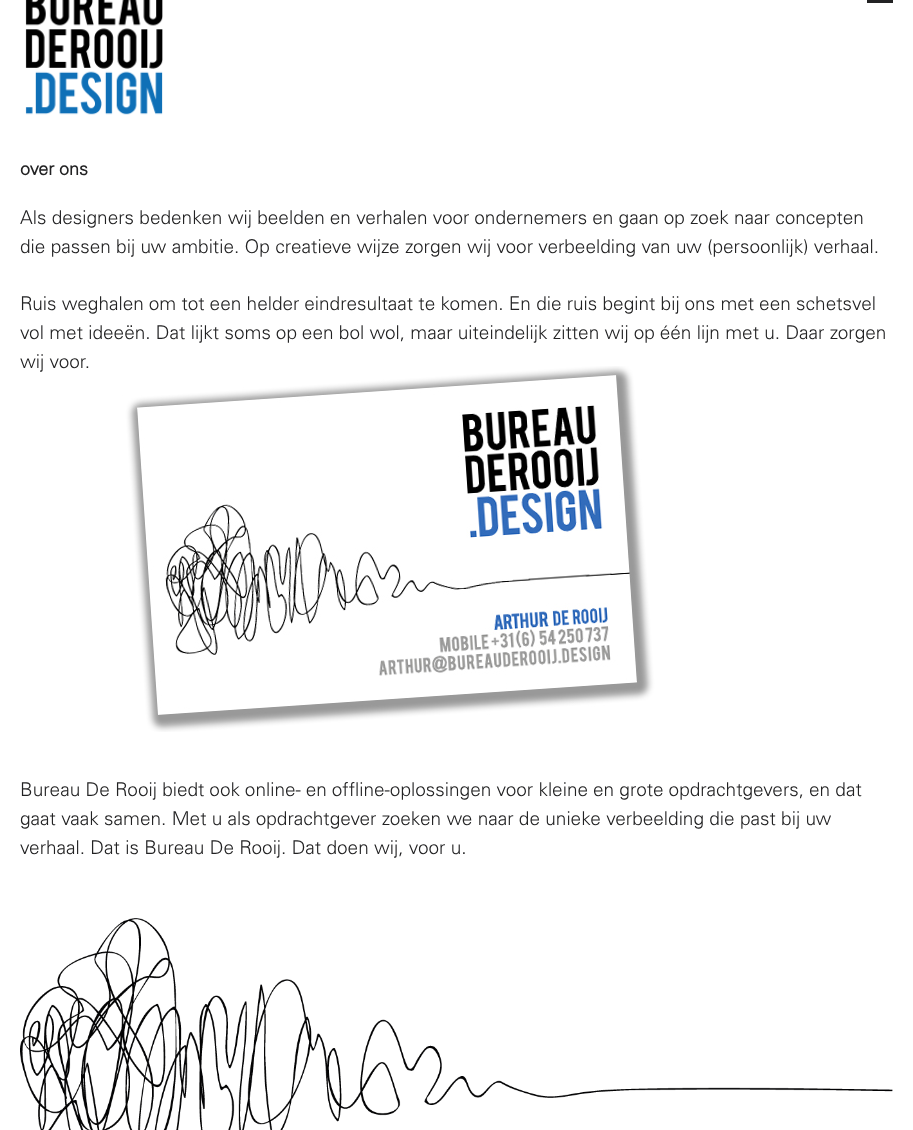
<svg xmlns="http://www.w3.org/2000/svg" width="913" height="1130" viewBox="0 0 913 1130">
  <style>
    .t1 { font: bold 18px 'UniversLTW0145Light'; fill: #222223; }
    .t2 { font: 300 19px 'UniversLTW0145Light'; fill: #222223; }
  </style>
  <rect width="100%" height="100%" fill="#fff"/>
  <image x="25" y="0" width="138" height="115" href="images/1.png"/>
  <rect x="867" y="0" width="26" height="3" fill="#222223"/>
  <text x="20" y="175" class="t1">over ons</text>
  <text x="20" y="224" class="t2">Als designers bedenken wij beelden en verhalen voor ondernemers en gaan op zoek naar concepten</text>
  <text x="20" y="253" class="t2">die passen bij uw ambitie. Op creatieve wijze zorgen wij voor verbeelding van uw (persoonlijk) verhaal.</text>
  <text x="20" y="310" class="t2">Ruis weghalen om tot een helder eindresultaat te komen. En die ruis begint bij ons met een schetsvel</text>
  <text x="20" y="339" class="t2">vol met ideeën. Dat lijkt soms op een bol wol, maar uiteindelijk zitten wij op één lijn met u. Daar zorgen</text>
  <text x="20" y="368" class="t2">wij voor.</text>
  <image x="90" y="366" width="600" height="366" href="images/2.png"/>
  <text x="20" y="796" class="t2">Bureau De Rooij biedt ook online- en offline-oplossingen voor kleine en grote opdrachtgevers, en dat</text>
  <text x="20" y="825" class="t2">gaat vaak samen. Met u als opdrachtgever zoeken we naar de unieke verbeelding die past bij uw</text>
  <text x="20" y="854" class="t2">verhaal. Dat is Bureau De Rooij. Dat doen wij, voor u.</text>
  <image x="20" y="918" width="873" height="212" href="images/3.png"/>
</svg>
